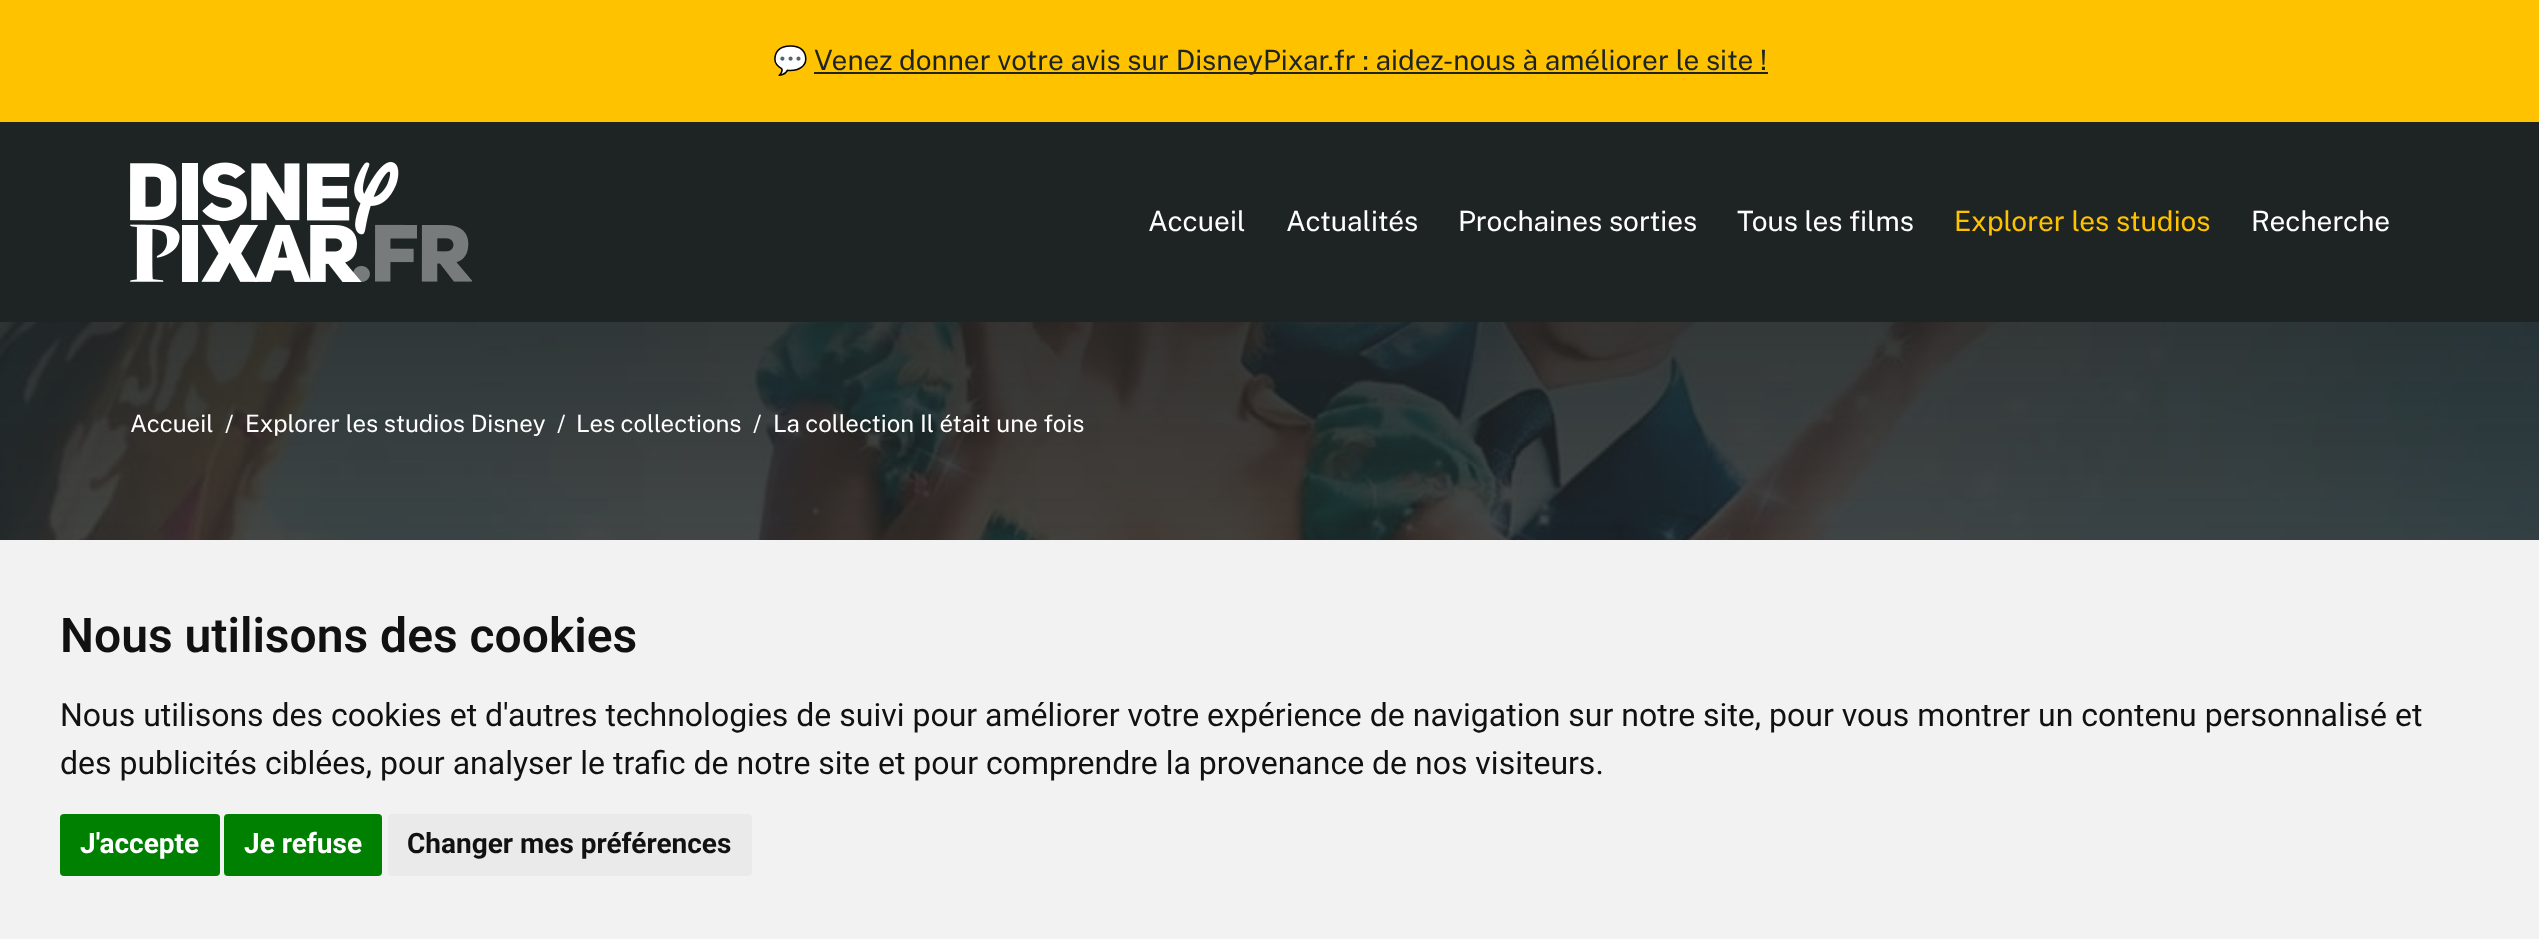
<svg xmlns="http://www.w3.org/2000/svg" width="2539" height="939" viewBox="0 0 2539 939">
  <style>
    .t1 { font: 28px Noto Color Emoji; fill: #1e2323; }
    .t2 { font: 28px Public Sans; fill: #1e2323; }
    .t3 { font: 28px Public Sans; fill: #fff; }
    .t4 { font: 28px Public Sans; fill: #ffc200; }
    .t5 { font: 24px Public Sans; fill: #fff; }
    .t6 { font: 600 48px Roboto; fill: #111; }
    .t7 { font: 32px Roboto; fill: #111; }
    .t8 { font: bold 28px Roboto; fill: #fff; }
    .t9 { font: bold 28px Roboto; fill: #111; }
  </style>
  <rect width="100%" height="100%" fill="#fff"/>
  <rect x="0" y="122" width="2539" height="200" fill="#1e2323"/>
  <rect x="0" y="0" width="2539" height="122" fill="#ffc200"/>
  <text x="773" y="70" class="t1">💬</text>
  <rect x="814" y="72" width="954" height="2" fill="#1e2323"/>
  <text x="814" y="70" class="t2">Venez donner votre avis sur DisneyPixar.fr : aidez-nous à améliorer le site !</text>
  <image x="130" y="162" width="342" height="120" href="images/1.png"/>
  <text x="1148" y="231" class="t3">Accueil</text>
  <text x="1286" y="231" class="t3">Actualités</text>
  <text x="1458" y="231" class="t3">Prochaines sorties</text>
  <text x="1737" y="231" class="t3">Tous les films</text>
  <text x="1954" y="231" class="t4">Explorer les studios</text>
  <text x="2251" y="231" class="t3">Recherche</text>
  <image x="0" y="322" width="2539" height="218" href="images/2.png"/>
  <text x="130" y="432" class="t5">Accueil</text>
  <text x="225" y="432" class="t5">/</text>
  <text x="245" y="432" class="t5">Explorer les studios Disney</text>
  <text x="557" y="432" class="t5">/</text>
  <text x="576" y="432" class="t5">Les collections</text>
  <text x="753" y="432" class="t5">/</text>
  <text x="773" y="432" class="t5">La collection Il était une fois</text>
  <rect x="0" y="540" width="2539" height="399" fill="#f2f2f2"/>
  <text x="60" y="652" class="t6">Nous utilisons des cookies</text>
  <text x="60" y="726" class="t7">Nous utilisons des cookies et d'autres technologies de suivi pour améliorer votre expérience de navigation sur notre site, pour vous montrer un contenu personnalisé et</text>
  <text x="60" y="774" class="t7">des publicités ciblées, pour analyser le trafic de notre site et pour comprendre la provenance de nos visiteurs.</text>
  <rect x="60" y="814" width="160" height="62" rx="4" fill="#008000"/>
  <text x="80" y="853" class="t8">J'accepte</text>
  <rect x="224" y="814" width="158" height="62" rx="4" fill="#008000"/>
  <text x="244" y="853" class="t8">Je refuse</text>
  <rect x="388" y="814" width="364" height="62" rx="4" fill="#eaeaea"/>
  <text x="407" y="853" class="t9">Changer mes préférences</text>
</svg>
